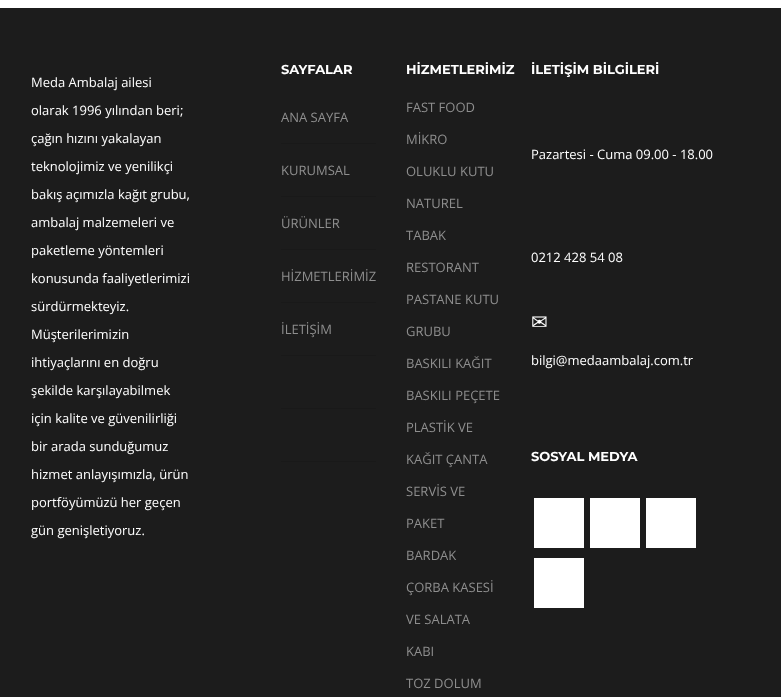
<svg xmlns="http://www.w3.org/2000/svg" width="781" height="697" viewBox="0 0 781 697">
  <style>
    .t1 { font: 13px Open Sans; fill: #fff; }
    .t2 { font: bold 13px Montserrat; fill: #fff; }
    .t3 { font: 13px Open Sans; fill: #8e8e8e; }
    .t4 { font: 20px DejaVu Sans; fill: #fff; }
  </style>
  <rect width="100%" height="100%" fill="#fff"/>
  <rect x="0" y="8" width="781" height="689" fill="#1c1c1c"/>
  <text x="31" y="87" class="t1">Meda Ambalaj ailesi</text>
  <text x="31" y="115" class="t1">olarak 1996 yılından beri;</text>
  <text x="31" y="143" class="t1">çağın hızını yakalayan</text>
  <text x="31" y="171" class="t1">teknolojimiz ve yenilikçi</text>
  <text x="31" y="199" class="t1">bakış açımızla kağıt grubu,</text>
  <text x="31" y="227" class="t1">ambalaj malzemeleri ve</text>
  <text x="31" y="255" class="t1">paketleme yöntemleri</text>
  <text x="31" y="283" class="t1">konusunda faaliyetlerimizi</text>
  <text x="31" y="311" class="t1">sürdürmekteyiz.</text>
  <text x="31" y="339" class="t1">Müşterilerimizin</text>
  <text x="31" y="367" class="t1">ihtiyaçlarını en doğru</text>
  <text x="31" y="395" class="t1">şekilde karşılayabilmek</text>
  <text x="31" y="423" class="t1">için kalite ve güvenilirliği</text>
  <text x="31" y="451" class="t1">bir arada sunduğumuz</text>
  <text x="31" y="479" class="t1">hizmet anlayışımızla, ürün</text>
  <text x="31" y="507" class="t1">portföyümüzü her geçen</text>
  <text x="31" y="535" class="t1">gün genişletiyoruz.</text>
  <text x="281" y="74" class="t2">SAYFALAR</text>
  <rect x="281" y="143" width="95" height="1" fill="#191919"/>
  <text x="281" y="122" class="t3">ANA SAYFA</text>
  <rect x="281" y="196" width="95" height="1" fill="#191919"/>
  <text x="281" y="175" class="t3">KURUMSAL</text>
  <rect x="281" y="249" width="95" height="1" fill="#191919"/>
  <text x="281" y="228" class="t3">ÜRÜNLER</text>
  <rect x="281" y="302" width="95" height="1" fill="#191919"/>
  <text x="281" y="281" class="t3">HİZMETLERİMİZ</text>
  <rect x="281" y="355" width="95" height="1" fill="#191919"/>
  <text x="281" y="334" class="t3">İLETİŞİM</text>
  <rect x="281" y="408" width="95" height="1" fill="#191919"/>
  <rect x="281" y="461" width="95" height="1" fill="#191919"/>
  <text x="406" y="74" class="t2">HİZMETLERİMİZ</text>
  <text x="406" y="112" class="t3">FAST FOOD</text>
  <text x="406" y="144" class="t3">MİKRO</text>
  <text x="406" y="176" class="t3">OLUKLU KUTU</text>
  <text x="406" y="208" class="t3">NATUREL</text>
  <text x="406" y="240" class="t3">TABAK</text>
  <text x="406" y="272" class="t3">RESTORANT</text>
  <text x="406" y="304" class="t3">PASTANE KUTU</text>
  <text x="406" y="336" class="t3">GRUBU</text>
  <text x="406" y="368" class="t3">BASKILI KAĞIT</text>
  <text x="406" y="400" class="t3">BASKILI PEÇETE</text>
  <text x="406" y="432" class="t3">PLASTİK VE</text>
  <text x="406" y="464" class="t3">KAĞIT ÇANTA</text>
  <text x="406" y="496" class="t3">SERVİS VE</text>
  <text x="406" y="528" class="t3">PAKET</text>
  <text x="406" y="560" class="t3">BARDAK</text>
  <text x="406" y="592" class="t3">ÇORBA KASESİ</text>
  <text x="406" y="624" class="t3">VE SALATA</text>
  <text x="406" y="656" class="t3">KABI</text>
  <text x="406" y="688" class="t3">TOZ DOLUM</text>
  <text x="531" y="74" class="t2">İLETİŞİM BİLGİLERİ</text>
  <text x="531" y="159" class="t1">Pazartesi - Cuma 09.00 - 18.00</text>
  <text x="531" y="262" class="t1">0212 428 54 08</text>
  <text x="531" y="329" class="t4">✉</text>
  <text x="531" y="365" class="t1">bilgi@medaambalaj.com.tr</text>
  <text x="531" y="461" class="t2">SOSYAL MEDYA</text>
  <rect x="534" y="498" width="50" height="50" fill="#fff"/>
  <rect x="590" y="498" width="50" height="50" fill="#fff"/>
  <rect x="646" y="498" width="50" height="50" fill="#fff"/>
  <rect x="534" y="558" width="50" height="50" fill="#fff"/>
</svg>
